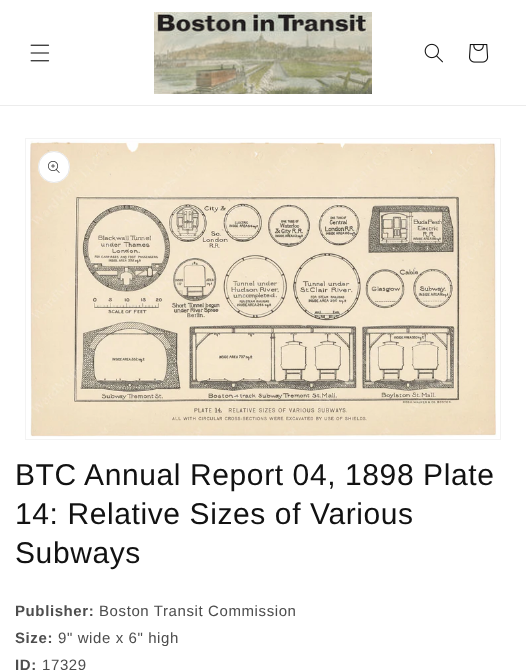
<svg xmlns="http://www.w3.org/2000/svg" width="526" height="670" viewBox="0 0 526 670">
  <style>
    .t1 { font: 30px Arimo; letter-spacing: 0.6px; fill: #121212; }
    .t2 { font: bold 15px Arimo; letter-spacing: 0.6px; fill: #4d4d4d; }
    .t3 { font: 15px Arimo; letter-spacing: 0.6px; fill: #4d4d4d; }
  </style>
  <rect width="100%" height="100%" fill="#fff"/>
  <rect x="0" y="105" width="526" height="1" fill="#ececec"/>
  <image x="30" y="44" width="20" height="18" href="images/1.png"/>
  <image x="154" y="12" width="218" height="82" href="images/2.png"/>
  <image x="424" y="43" width="19" height="20" href="images/3.png"/>
  <image x="469" y="44" width="20" height="19" href="images/4.png"/>
  <rect x="25.5" y="138.5" width="475" height="301" fill="none" stroke="#f3f3f3"/>
  <image x="30" y="140" width="467" height="297" href="images/5.png"/>
  <circle cx="54" cy="167" r="16" fill="#fff"/>
  <circle cx="54" cy="167" r="15.5" fill="none" stroke="#1212121a"/>
  <image x="48" y="161" width="12" height="12" href="images/6.png"/>
  <text x="15" y="485" class="t1">BTC Annual Report 04, 1898 Plate</text>
  <text x="15" y="524" class="t1">14: Relative Sizes of Various</text>
  <text x="15" y="563" class="t1">Subways</text>
  <text x="15" y="616" class="t2">Publisher:</text>
  <text x="99" y="616" class="t3">Boston Transit Commission</text>
  <text x="15" y="643" class="t2">Size:</text>
  <text x="58" y="643" class="t3">9" wide x 6" high</text>
  <text x="15" y="670" class="t2">ID:</text>
  <text x="42" y="670" class="t3">17329</text>
</svg>
